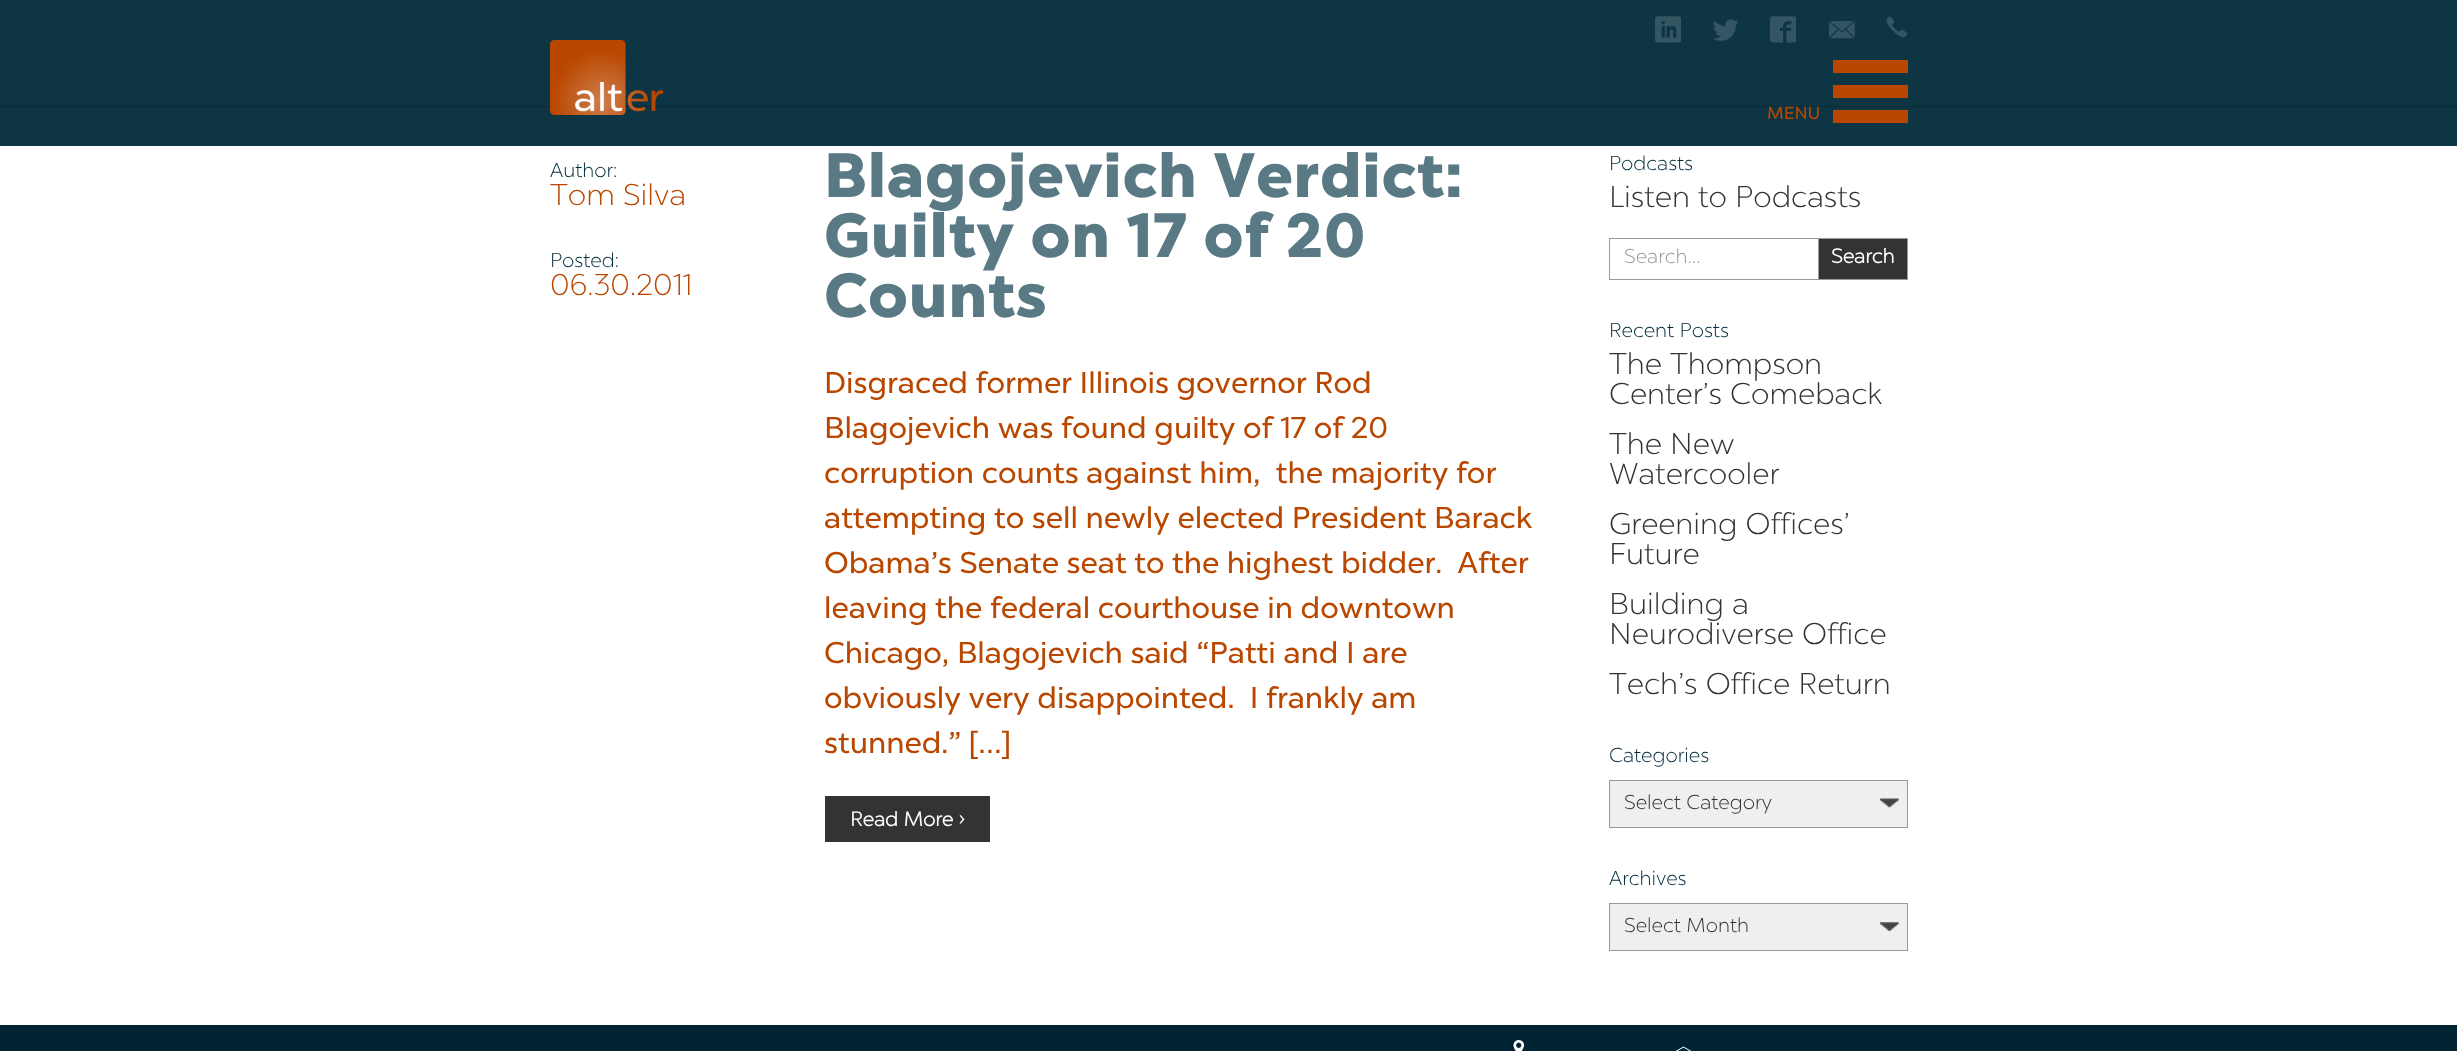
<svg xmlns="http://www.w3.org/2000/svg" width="2457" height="1051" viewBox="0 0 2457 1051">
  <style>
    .t1 { font: 17.5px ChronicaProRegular; fill: #b94700; }
    .t2 { font: 20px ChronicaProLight; fill: #002a3a; }
    .t3 { font: 30px ChronicaProLight; fill: #b94700; }
    .t4 { font: bold 60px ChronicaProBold; letter-spacing: 2.5px; fill: #597985; }
    .t5 { font: 30px ChronicaProRegular; fill: #b94700; }
    .t6 { font: bold 20px ChronicaProLight; fill: #fff; }
    .t7 { font: 30px ChronicaProLight; fill: #333; }
    .t8 { font: 20px ChronicaProLight; fill: #999; }
    .t9 { font: 20px ChronicaProLight; fill: #333; }
  </style>
  <rect width="100%" height="100%" fill="#002432"/>
  <rect x="0" y="0" width="2457" height="146" fill="#0d3544"/>
  <rect x="0" y="106" width="2457" height="1" fill="#092b37"/>
  <image x="550" y="40" width="113" height="75" href="images/1.png"/>
  <image x="1655" y="16" width="26" height="27" href="images/2.png"/>
  <image x="1713" y="19" width="26" height="22" href="images/3.png"/>
  <image x="1770" y="16" width="26" height="27" href="images/4.png"/>
  <image x="1829" y="21" width="26" height="18" href="images/5.png"/>
  <image x="1886" y="16" width="22" height="22" href="images/6.png"/>
  <text x="1767" y="119" class="t1">MENU</text>
  <rect x="1833" y="110" width="75" height="13" fill="#b94700"/>
  <rect x="1833" y="60" width="75" height="13" fill="#b94700"/>
  <rect x="1833" y="85" width="75" height="13" fill="#b94700"/>
  <rect x="0" y="146" width="2457" height="879" fill="#fff"/>
  <text x="550" y="177" class="t2">Author:</text>
  <text x="550" y="205" class="t3">Tom Silva</text>
  <text x="550" y="267" class="t2">Posted:</text>
  <text x="550" y="295" class="t3">06.30.2011</text>
  <text x="824" y="197" class="t4">Blagojevich Verdict:</text>
  <text x="824" y="257" class="t4">Guilty on 17 of 20</text>
  <text x="824" y="317" class="t4">Counts</text>
  <text x="824" y="393" class="t5">Disgraced former Illinois governor Rod</text>
  <text x="824" y="438" class="t5">Blagojevich was found guilty of 17 of 20</text>
  <text x="824" y="483" class="t5" xml:space="preserve">corruption counts against him,  the majority for</text>
  <text x="824" y="528" class="t5">attempting to sell newly elected President Barack</text>
  <text x="824" y="573" class="t5" xml:space="preserve">Obama’s Senate seat to the highest bidder.  After</text>
  <text x="824" y="618" class="t5">leaving the federal courthouse in downtown</text>
  <text x="824" y="663" class="t5">Chicago, Blagojevich said “Patti and I are</text>
  <text x="824" y="708" class="t5" xml:space="preserve">obviously very disappointed.  I frankly am</text>
  <text x="824" y="753" class="t5">stunned.” […]</text>
  <rect x="825" y="796" width="165" height="46" fill="#333"/>
  <text x="850" y="826" class="t6">Read More ›</text>
  <text x="1609" y="170" class="t2">Podcasts</text>
  <text x="1609" y="207" class="t7">Listen to Podcasts</text>
  <rect x="1609" y="238" width="209" height="1" fill="#999"/>
  <rect x="1609" y="279" width="209" height="1" fill="#999"/>
  <rect x="1609" y="238" width="1" height="42" fill="#999"/>
  <text x="1624" y="263" class="t8">Search…</text>
  <rect x="1818.5" y="238.5" width="89" height="41" fill="#333" stroke="#999"/>
  <text x="1831" y="263" class="t6">Search</text>
  <text x="1609" y="337" class="t2">Recent Posts</text>
  <text x="1609" y="374" class="t7">The Thompson</text>
  <text x="1609" y="404" class="t7">Center’s Comeback</text>
  <text x="1609" y="454" class="t7">The New</text>
  <text x="1609" y="484" class="t7">Watercooler</text>
  <text x="1609" y="534" class="t7">Greening Offices’</text>
  <text x="1609" y="564" class="t7">Future</text>
  <text x="1609" y="614" class="t7">Building a</text>
  <text x="1609" y="644" class="t7">Neurodiverse Office</text>
  <text x="1609" y="694" class="t7">Tech’s Office Return</text>
  <text x="1609" y="762" class="t2">Categories</text>
  <rect x="1610" y="781" width="297" height="46" fill="#efefef"/>
  <image x="1880" y="798" width="19" height="10" href="images/7.png"/>
  <rect x="1609.5" y="780.5" width="298" height="47" fill="none" stroke="#999"/>
  <text x="1624" y="809" class="t9">Select Category</text>
  <text x="1609" y="885" class="t2">Archives</text>
  <rect x="1610" y="904" width="297" height="46" fill="#efefef"/>
  <image x="1880" y="922" width="19" height="9" href="images/8.png"/>
  <rect x="1609.5" y="903.5" width="298" height="47" fill="none" stroke="#999"/>
  <text x="1624" y="932" class="t9">Select Month</text>
  <image x="1513" y="1040" width="11" height="11" href="images/9.png"/>
  <path d="M1672.5 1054L1683.5 1047.5L1694.5 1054H1696.5L1683.5 1046.5L1670.5 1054Z" fill="#fff"/>
</svg>
